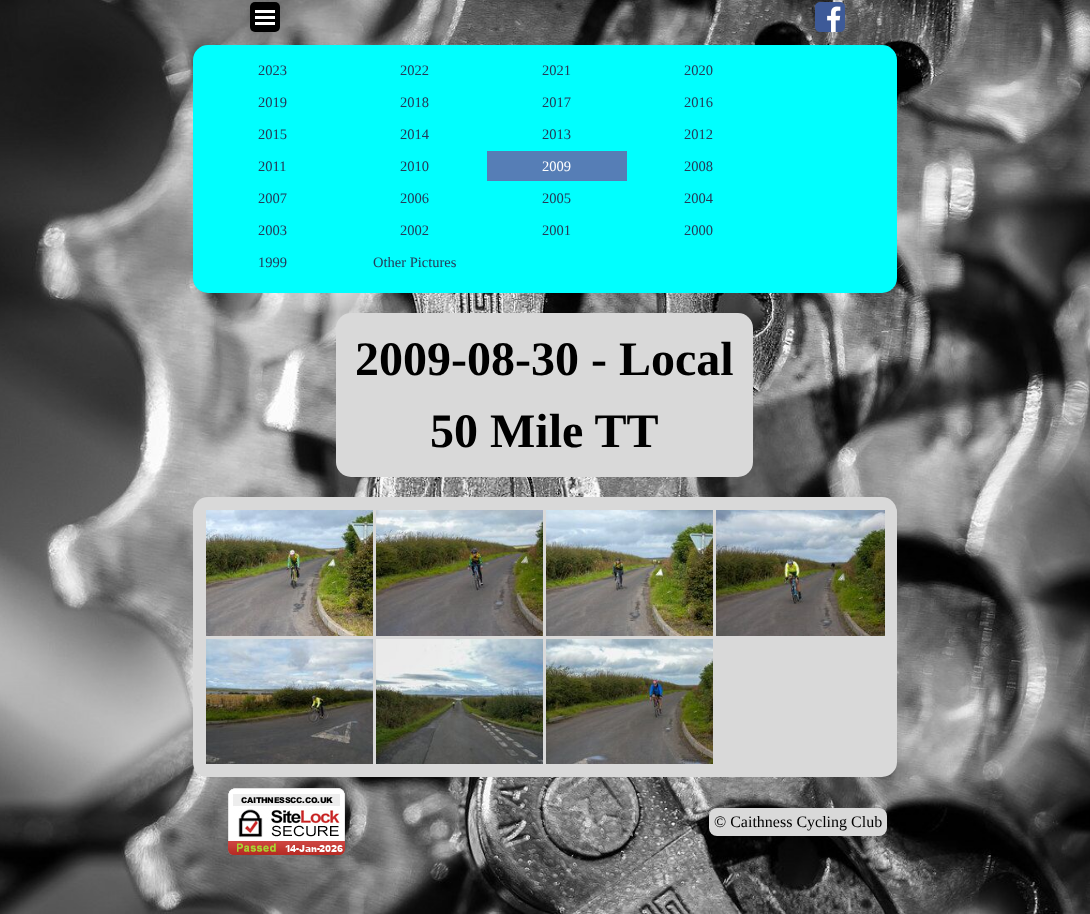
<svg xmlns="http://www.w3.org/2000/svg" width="1090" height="914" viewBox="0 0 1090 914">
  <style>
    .t1 { font: 14.5px Liberation Serif; fill: #253a58; }
    .t2 { font: 14.5px Liberation Serif; fill: #fff; }
    .t3 { font: bold 48px Liberation Serif; fill: #000; }
    .t4 { font: 16px Liberation Serif; fill: #000; }
  </style>
  <rect width="100%" height="100%" fill="#fff"/>
  <image x="0" y="0" width="1090" height="914" href="images/1.png"/>
  <rect x="250" y="2" width="30" height="30" rx="5" fill="#000"/>
  <rect x="255" y="10" width="20" height="3" fill="#fff"/>
  <rect x="255" y="16" width="20" height="3" fill="#fff"/>
  <rect x="255" y="22" width="20" height="3" fill="#fff"/>
  <image x="815" y="2" width="30" height="30" href="images/2.png"/>
  <rect x="193" y="45" width="704" height="248" rx="15" fill="#0ff"/>
  <text x="258" y="75" class="t1">2023</text>
  <text x="400" y="75" class="t1">2022</text>
  <text x="542" y="75" class="t1">2021</text>
  <text x="684" y="75" class="t1">2020</text>
  <text x="258" y="107" class="t1">2019</text>
  <text x="400" y="107" class="t1">2018</text>
  <text x="542" y="107" class="t1">2017</text>
  <text x="684" y="107" class="t1">2016</text>
  <text x="258" y="139" class="t1">2015</text>
  <text x="400" y="139" class="t1">2014</text>
  <text x="542" y="139" class="t1">2013</text>
  <text x="684" y="139" class="t1">2012</text>
  <text x="258" y="171" class="t1">2011</text>
  <text x="400" y="171" class="t1">2010</text>
  <rect x="487" y="151" width="140" height="30" fill="#567eb6"/>
  <text x="542" y="171" class="t2">2009</text>
  <text x="684" y="171" class="t1">2008</text>
  <text x="258" y="203" class="t1">2007</text>
  <text x="400" y="203" class="t1">2006</text>
  <text x="542" y="203" class="t1">2005</text>
  <text x="684" y="203" class="t1">2004</text>
  <text x="258" y="235" class="t1">2003</text>
  <text x="400" y="235" class="t1">2002</text>
  <text x="542" y="235" class="t1">2001</text>
  <text x="684" y="235" class="t1">2000</text>
  <text x="258" y="267" class="t1">1999</text>
  <text x="373" y="267" class="t1">Other Pictures</text>
  <rect x="336" y="313" width="417" height="164" rx="15" fill="#d9d9d9"/>
  <text x="355" y="375" class="t3">2009-08-30 - Local</text>
  <text x="430" y="447" class="t3">50 Mile TT</text>
  <rect x="193" y="497" width="704" height="280" rx="15" fill="#d9d9d9"/>
  <image x="206" y="510" width="167" height="126" href="images/3.png"/>
  <image x="376" y="510" width="167" height="126" href="images/4.png"/>
  <image x="546" y="510" width="167" height="126" href="images/5.png"/>
  <image x="716" y="510" width="169" height="126" href="images/6.png"/>
  <image x="206" y="639" width="167" height="125" href="images/7.png"/>
  <image x="376" y="639" width="167" height="125" href="images/8.png"/>
  <image x="546" y="639" width="167" height="125" href="images/9.png"/>
  <image x="228" y="788" width="117" height="67" href="images/10.png"/>
  <rect x="709" y="808" width="178" height="28" rx="8" fill="#d9d9d9"/>
  <text x="714" y="827" class="t4">© Caithness Cycling Club</text>
</svg>
